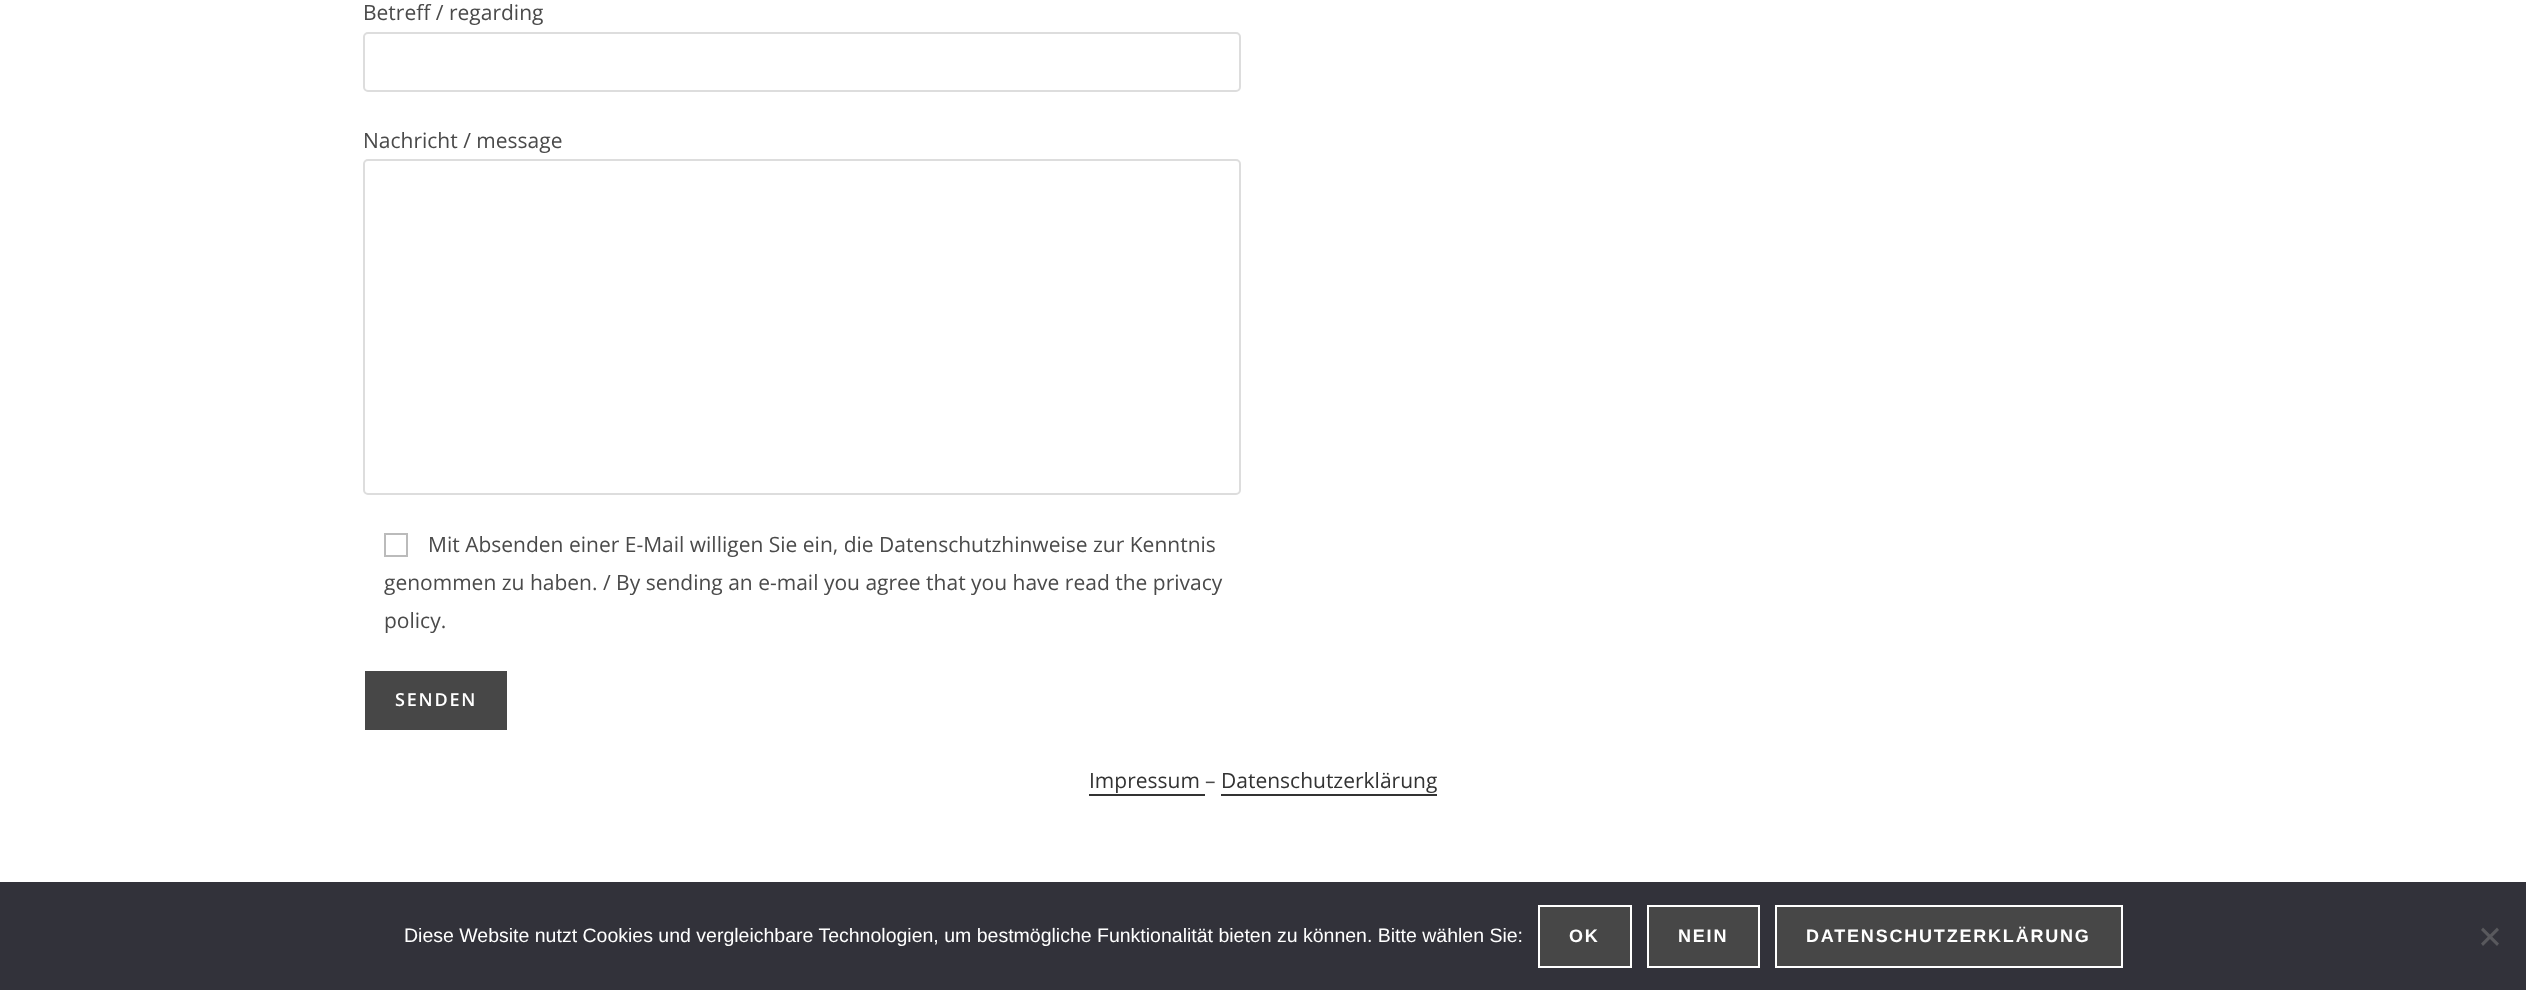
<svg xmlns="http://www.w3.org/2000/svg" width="2526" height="990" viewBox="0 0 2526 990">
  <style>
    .t1 { font: 21px Open Sans; fill: #4a4a4a; }
    .t2 { font: 600 18px Open Sans; letter-spacing: 1.8px; fill: #fff; }
    .t3 { font: 21px Open Sans; fill: #333; }
    .t4 { font: 19.5px Liberation Sans; fill: #fff; }
    .t5 { font: bold 18px Liberation Sans; letter-spacing: 1.8px; fill: #fff; }
  </style>
  <rect width="100%" height="100%" fill="#fff"/>
  <text x="363" y="20" class="t1">Betreff / regarding</text>
  <rect x="364" y="33" width="876" height="58" rx="4" fill="none" stroke="#ddd" stroke-width="2"/>
  <text x="363" y="148" class="t1">Nachricht / message</text>
  <rect x="364" y="160" width="876" height="334" rx="4" fill="none" stroke="#ddd" stroke-width="2"/>
  <rect x="385" y="534" width="22" height="22" fill="none" stroke="#bbb" stroke-width="2"/>
  <text x="428" y="552" class="t1">Mit Absenden einer E-Mail willigen Sie ein, die Datenschutzhinweise zur Kenntnis</text>
  <text x="384" y="590" class="t1">genommen zu haben. / By sending an e-mail you agree that you have read the privacy</text>
  <text x="384" y="628" class="t1">policy.</text>
  <rect x="365" y="671" width="142" height="59" fill="#474747"/>
  <text x="395" y="706" class="t2">SENDEN</text>
  <text x="1089" y="788" class="t3">Impressum</text>
  <rect x="1089" y="794" width="116" height="2" fill="#333"/>
  <text x="1205" y="788" class="t1">–</text>
  <text x="1221" y="788" class="t3">Datenschutzerklärung</text>
  <rect x="1221" y="794" width="216" height="2" fill="#333"/>
  <rect x="0" y="882" width="2526" height="108" fill="#32323a"/>
  <text x="404" y="942" class="t4">Diese Website nutzt Cookies und vergleichbare Technologien, um bestmögliche Funktionalität bieten zu können. Bitte wählen Sie:</text>
  <rect x="1539" y="906" width="92" height="61" fill="#474747" stroke="#fff" stroke-width="2"/>
  <text x="1569" y="942" class="t5">OK</text>
  <rect x="1648" y="906" width="111" height="61" fill="#474747" stroke="#fff" stroke-width="2"/>
  <text x="1678" y="942" class="t5">NEIN</text>
  <rect x="1776" y="906" width="346" height="61" fill="#474747" stroke="#fff" stroke-width="2"/>
  <text x="1806" y="942" class="t5">DATENSCHUTZERKLÄRUNG</text>
  <path d="M2497 927.5L2499 930L2483 946L2481 943.5Z" fill="#59595d"/>
  <path d="M2481 930L2483 927.5L2499 943.5L2497 946Z" fill="#59595d"/>
</svg>
